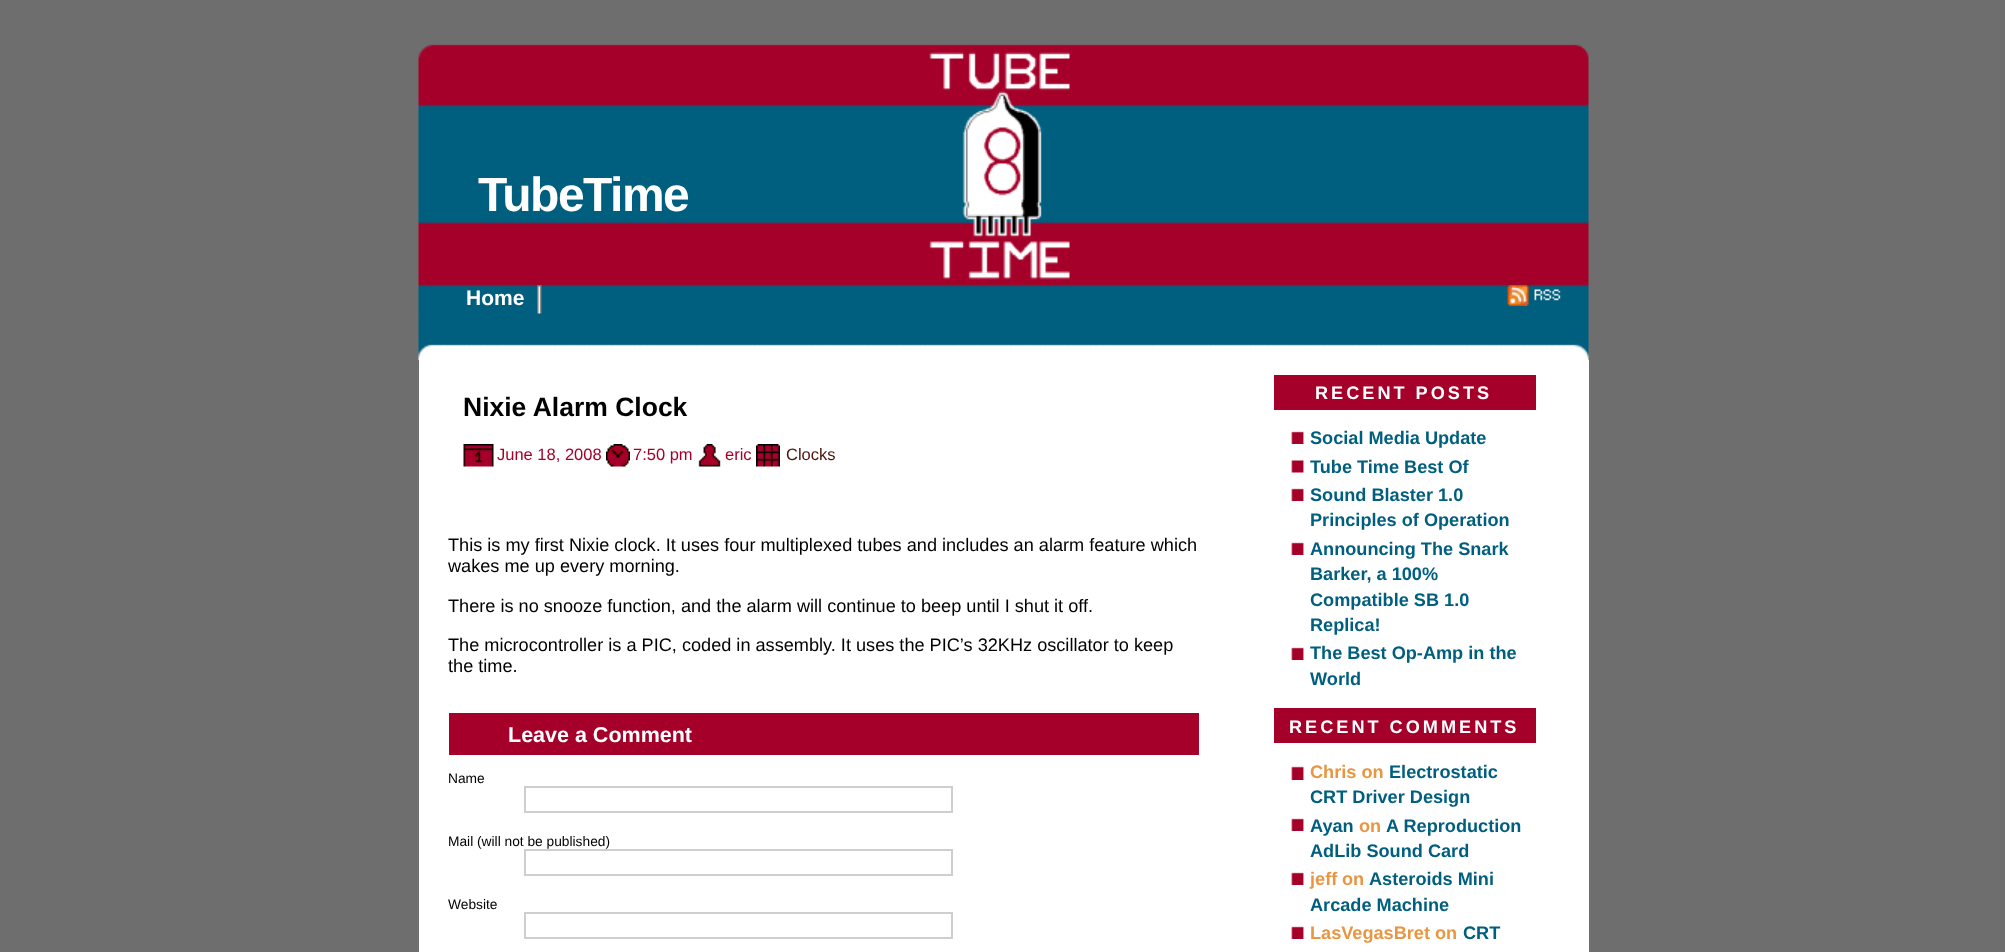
<svg xmlns="http://www.w3.org/2000/svg" width="2005" height="952" viewBox="0 0 2005 952">
  <style>
    .t1 { font: bold 48px Liberation Sans; letter-spacing: -1.5px; fill: #fff; }
    .t2 { font: bold 21px Liberation Sans; fill: #fff; }
    .t3 { font: bold 26.5px Liberation Sans; fill: #000; }
    .t4 { font: 16.5px Liberation Sans; fill: #a50029; }
    .t5 { font: 16.5px Liberation Sans; fill: #4c1209; }
    .t6 { font: 18.15px Liberation Sans; fill: #000; }
    .t7 { font: bold 21.5px Liberation Sans; fill: #fff; }
    .t8 { font: 13.75px Liberation Sans; fill: #000; }
    .t9 { font: bold 18.15px Liberation Sans; letter-spacing: 3px; fill: #fff; }
    .t10 { font: bold 18.15px Liberation Sans; fill: #005f7f; }
    .t11 { font: bold 18.15px Liberation Sans; fill: #e89642; }
  </style>
  <rect width="100%" height="100%" fill="#6e6e6e"/>
  <image x="418" y="44" width="1171" height="316" href="images/1.png"/>
  <text x="478" y="211" class="t1">TubeTime</text>
  <image x="537" y="285" width="5" height="29" href="images/2.png"/>
  <text x="466" y="305" class="t2">Home</text>
  <image x="1507" y="285" width="54" height="21" href="images/3.png"/>
  <rect x="419" y="360" width="1170" height="592" fill="#fff"/>
  <text x="463" y="416" class="t3">Nixie Alarm Clock</text>
  <image x="463" y="444" width="31" height="23" href="images/4.png"/>
  <text x="497" y="460" class="t4">June 18, 2008</text>
  <image x="606" y="444" width="24" height="23" href="images/5.png"/>
  <text x="633" y="460" class="t4">7:50 pm</text>
  <image x="698" y="444" width="23" height="23" href="images/6.png"/>
  <text x="725" y="460" class="t4">eric</text>
  <image x="756" y="444" width="24" height="23" href="images/7.png"/>
  <text x="786" y="460" class="t5">Clocks</text>
  <text x="448" y="551" class="t6">This is my first Nixie clock. It uses four multiplexed tubes and includes an alarm feature which</text>
  <text x="448" y="572" class="t6">wakes me up every morning.</text>
  <text x="448" y="612" class="t6">There is no snooze function, and the alarm will continue to beep until I shut it off.</text>
  <text x="448" y="651" class="t6">The microcontroller is a PIC, coded in assembly. It uses the PIC’s 32KHz oscillator to keep</text>
  <text x="448" y="672" class="t6">the time.</text>
  <rect x="449" y="713" width="750" height="42" fill="#a50029"/>
  <text x="508" y="742" class="t7">Leave a Comment</text>
  <text x="448" y="783" class="t8">Name</text>
  <rect x="525" y="787" width="427" height="25" fill="none" stroke="#cecece" stroke-width="2"/>
  <text x="448" y="846" class="t8">Mail (will not be published)</text>
  <rect x="525" y="850" width="427" height="25" fill="none" stroke="#cecece" stroke-width="2"/>
  <text x="448" y="909" class="t8">Website</text>
  <rect x="525" y="913" width="427" height="25" fill="none" stroke="#cecece" stroke-width="2"/>
  <rect x="1274" y="375" width="262" height="35" fill="#a50029"/>
  <text x="1315" y="399" class="t9">RECENT POSTS</text>
  <image x="1291" y="431" width="13" height="13" href="images/8.png"/>
  <text x="1310" y="444" class="t10">Social Media Update</text>
  <image x="1291" y="460" width="13" height="13" href="images/9.png"/>
  <text x="1310" y="473" class="t10">Tube Time Best Of</text>
  <image x="1291" y="488" width="13" height="13" href="images/8.png"/>
  <text x="1310" y="501" class="t10">Sound Blaster 1.0</text>
  <text x="1310" y="526" class="t10">Principles of Operation</text>
  <image x="1291" y="542" width="13" height="13" href="images/8.png"/>
  <text x="1310" y="555" class="t10">Announcing The Snark</text>
  <text x="1310" y="580" class="t10">Barker, a 100%</text>
  <text x="1310" y="606" class="t10">Compatible SB 1.0</text>
  <text x="1310" y="631" class="t10">Replica!</text>
  <image x="1291" y="647" width="13" height="13" href="images/8.png"/>
  <text x="1310" y="659" class="t10">The Best Op-Amp in the</text>
  <text x="1310" y="685" class="t10">World</text>
  <rect x="1274" y="708" width="262" height="35" fill="#a50029"/>
  <text x="1289" y="733" class="t9">RECENT COMMENTS</text>
  <image x="1291" y="766" width="13" height="14" href="images/10.png"/>
  <text x="1310" y="778" class="t11">Chris on</text>
  <text x="1389" y="778" class="t10">Electrostatic</text>
  <text x="1310" y="803" class="t10">CRT Driver Design</text>
  <image x="1291" y="818" width="13" height="13" href="images/8.png"/>
  <text x="1310" y="832" class="t10">Ayan</text>
  <text x="1359" y="832" class="t11">on</text>
  <text x="1386" y="832" class="t10">A Reproduction</text>
  <text x="1310" y="857" class="t10">AdLib Sound Card</text>
  <image x="1291" y="872" width="13" height="13" href="images/8.png"/>
  <text x="1310" y="885" class="t11">jeff</text>
  <text x="1342" y="885" class="t11">on</text>
  <text x="1369" y="885" class="t10">Asteroids Mini</text>
  <text x="1310" y="911" class="t10">Arcade Machine</text>
  <image x="1291" y="926" width="13" height="13" href="images/8.png"/>
  <text x="1310" y="939" class="t11">LasVegasBret on</text>
  <text x="1463" y="939" class="t10">CRT</text>
</svg>
